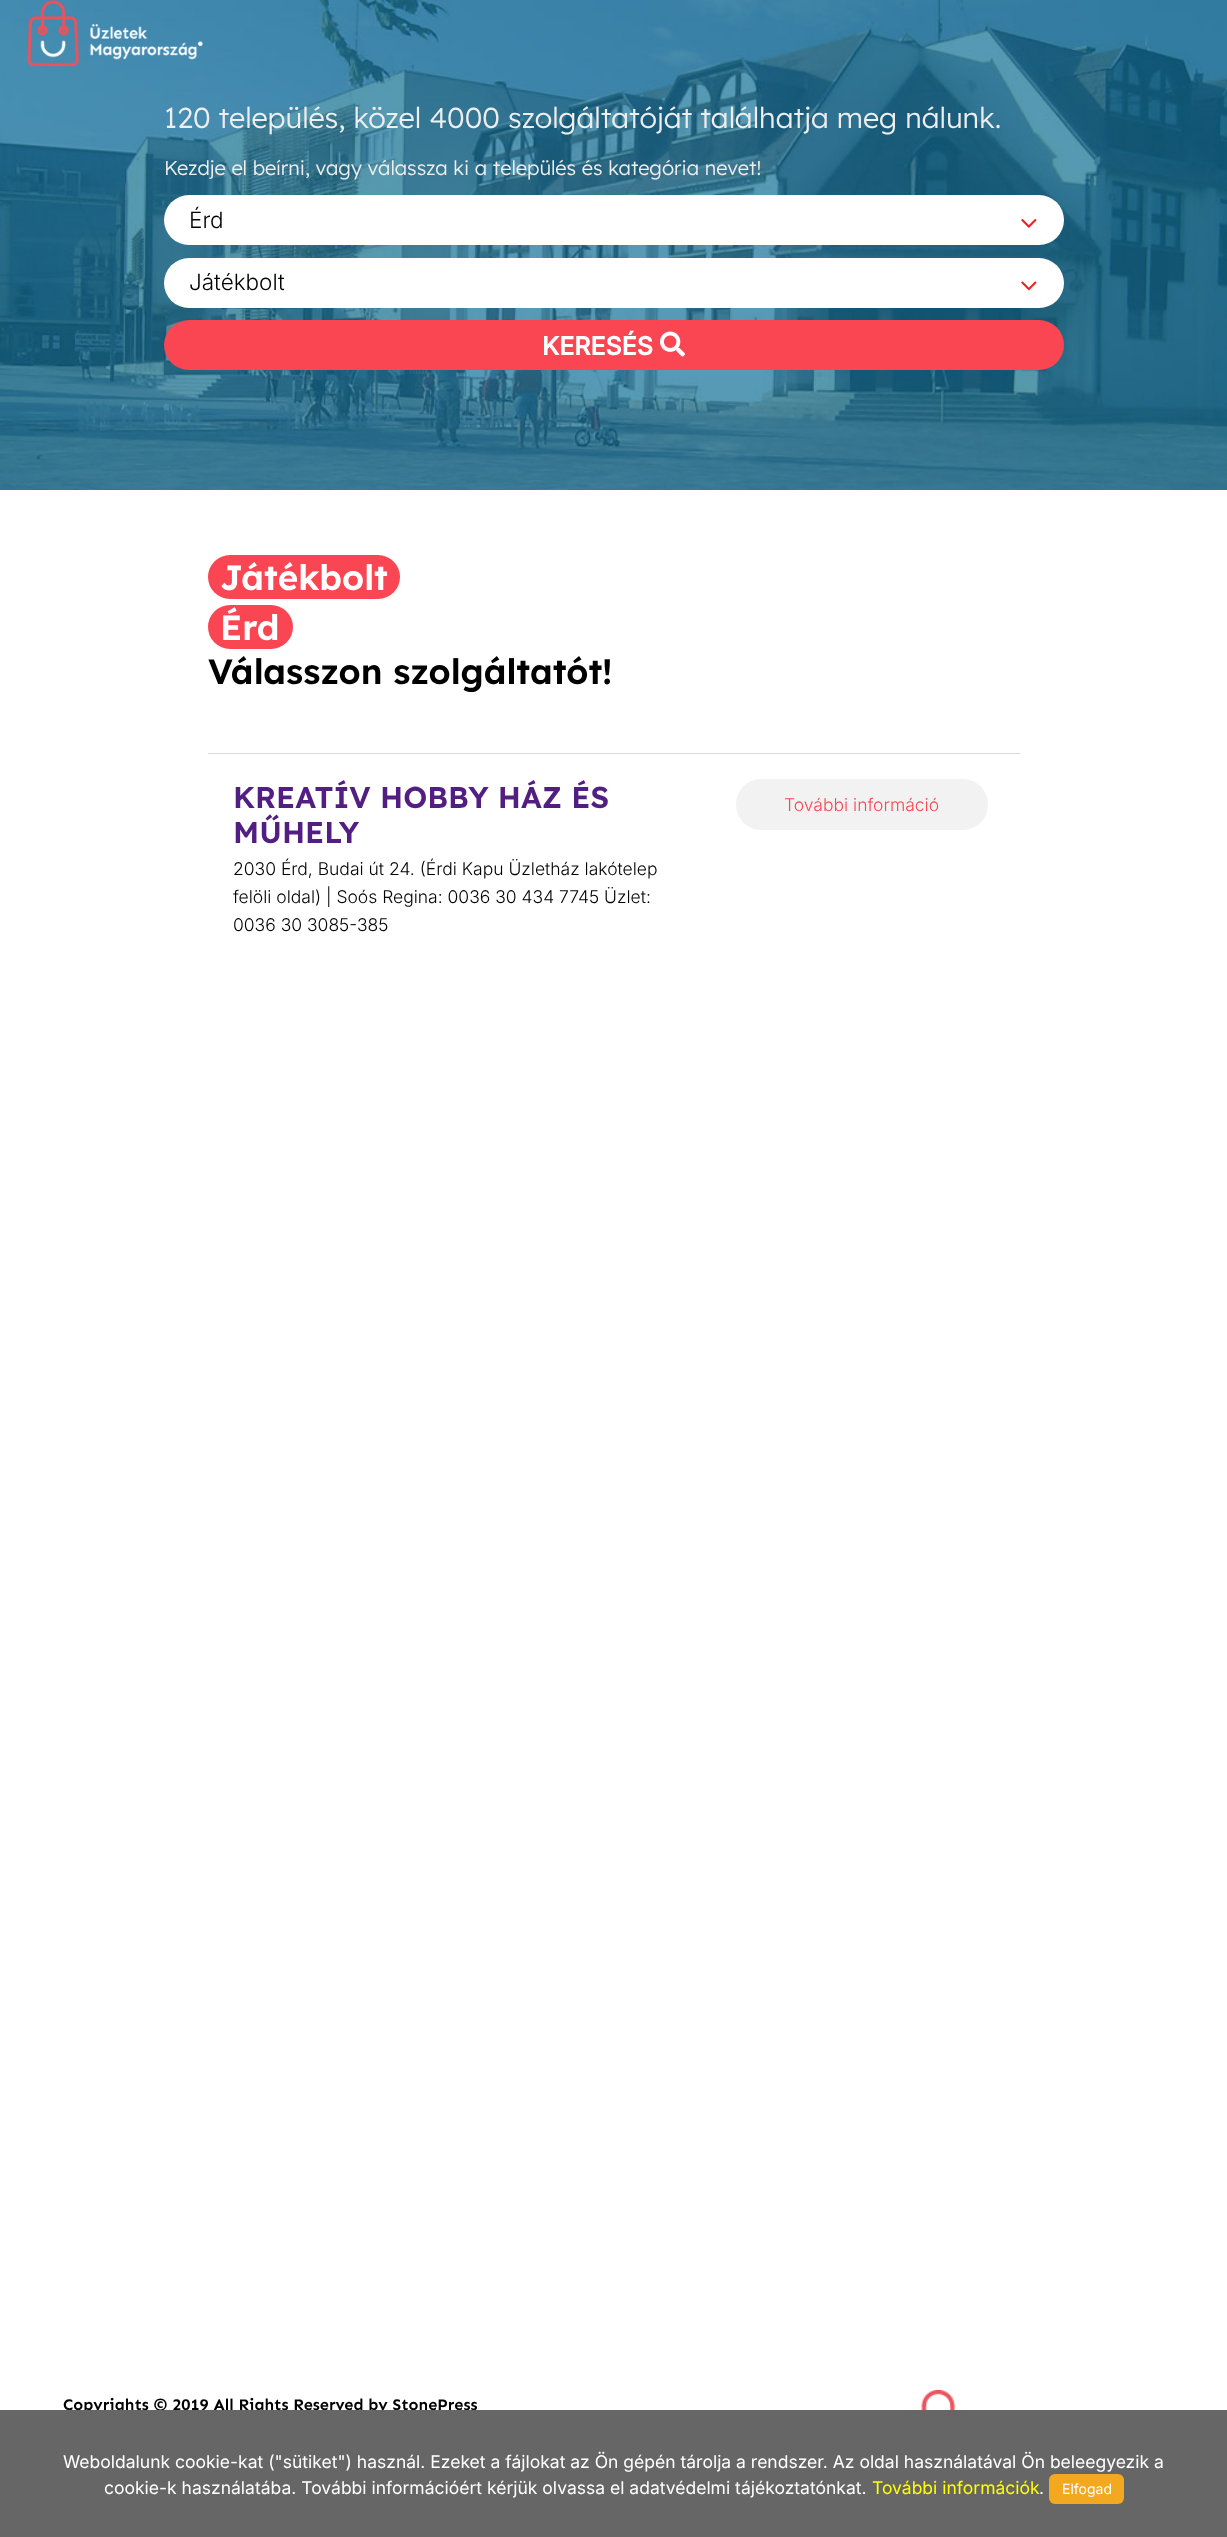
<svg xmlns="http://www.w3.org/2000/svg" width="1227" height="2537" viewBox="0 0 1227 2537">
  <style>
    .t1 { font: 300 28.75px Lexend; fill: #eee; }
    .t2 { font: 300 20px Lexend; fill: #eee; }
    .t3 { font: 300 22.5px Inter; fill: #000; }
    .t4 { font: bold 25px Inter; fill: #fff; }
    .t5 { font: 600 35px Lexend; fill: #fff; }
    .t6 { font: 600 35px Lexend; fill: #000; }
    .t7 { font: 600 30px Lexend; fill: #521e81; }
    .t8 { font: 300 17.5px Inter; fill: #000; }
    .t9 { font: 300 17.5px Inter; fill: #fa4652; }
    .t10 { font: bold 16.25px Sen; fill: #000; }
    .t11 { font: 17.5px Inter; fill: #fff; }
    .t12 { font: 17.5px Inter; fill: #ff0; }
    .t13 { font: 14px Inter; fill: #fff; }
  </style>
  <rect width="100%" height="100%" fill="#fff"/>
  <image x="0" y="0" width="1227" height="490" href="images/2.png"/>
  <image x="27" y="0" width="176" height="67" href="images/1.png"/>
  <text x="164" y="128" class="t1">120 település, közel 4000 szolgáltatóját találhatja meg nálunk.</text>
  <text x="164" y="175" class="t2">Kezdje el beírni, vagy válassza ki a település és kategória nevet!</text>
  <rect x="164" y="195" width="900" height="50" rx="25" fill="#fff"/>
  <text x="189" y="228" class="t3">Érd</text>
  <image x="1021" y="219" width="16" height="9" href="images/3.png"/>
  <rect x="164" y="258" width="900" height="50" rx="25" fill="#fff"/>
  <text x="189" y="290" class="t3">Játékbolt</text>
  <image x="1021" y="281" width="16" height="10" href="images/4.png"/>
  <rect x="164" y="320" width="900" height="50" rx="25" fill="#fa4652"/>
  <text x="542" y="355" class="t4">KERESÉS</text>
  <image x="660" y="331" width="25" height="26" href="images/5.png"/>
  <rect x="208" y="555" width="192" height="44" rx="22" fill="#fa4652"/>
  <text x="220" y="590" class="t5">Játékbolt</text>
  <rect x="208" y="605" width="85" height="44" rx="22" fill="#fa4652"/>
  <text x="220" y="640" class="t5">Érd</text>
  <text x="208" y="684" class="t6">Válasszon szolgáltatót!</text>
  <rect x="208" y="753" width="812" height="1" fill="#d9d9d9"/>
  <text x="233" y="808" class="t7">KREATÍV HOBBY HÁZ ÉS</text>
  <text x="233" y="843" class="t7">MŰHELY</text>
  <text x="233" y="875" class="t8">2030 Érd, Budai út 24. (Érdi Kapu Üzletház lakótelep</text>
  <text x="233" y="903" class="t8">felöli oldal) | Soós Regina: 0036 30 434 7745 Üzlet:</text>
  <text x="233" y="931" class="t8">0036 30 3085-385</text>
  <rect x="736" y="779" width="252" height="51" rx="25" fill="#f2f2f2"/>
  <text x="784" y="811" class="t9">További információ</text>
  <text x="63" y="2410" class="t10">Copyrights © 2019 All Rights Reserved by StonePress</text>
  <image x="921" y="2390" width="35" height="20" href="images/6.png"/>
  <rect x="0" y="2410" width="1227" height="127" fill="#666"/>
  <text x="63" y="2468" class="t11">Weboldalunk cookie-kat ("sütiket") használ. Ezeket a fájlokat az Ön gépén tárolja a rendszer. Az oldal használatával Ön beleegyezik a</text>
  <text x="104" y="2494" class="t11">cookie-k használatába. További információért kérjük olvassa el adatvédelmi tájékoztatónkat.</text>
  <text x="872" y="2494" class="t12">További információk</text>
  <text x="1039" y="2494" class="t11">.</text>
  <rect x="1049" y="2474" width="75" height="30" rx="6" fill="#f2a920"/>
  <text x="1062" y="2494" class="t13">Elfogad</text>
</svg>
